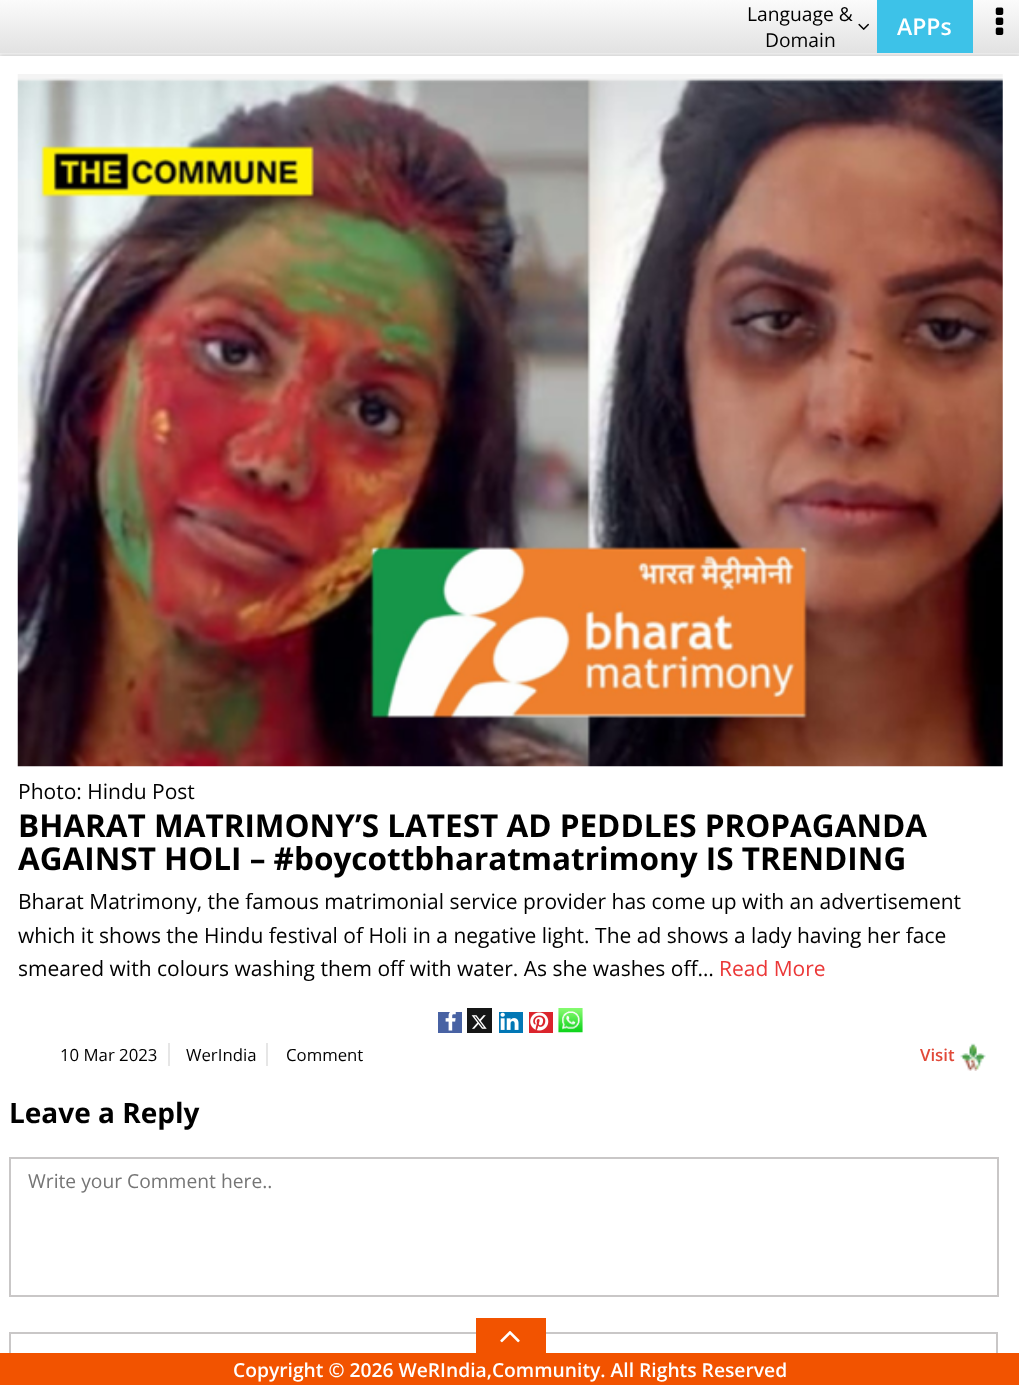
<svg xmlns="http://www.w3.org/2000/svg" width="1019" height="1385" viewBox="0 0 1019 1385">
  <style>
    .t1 { font: 19.25px Open Sans; fill: #000; }
    .t2 { font: 600 23px Open Sans; fill: #fff; }
    .t3 { font: 21px Open Sans; fill: #000; }
    .t4 { font: bold 31.5px Open Sans; fill: #000; }
    .t5 { font: 21px Open Sans; fill: #eb3838; }
    .t6 { font: 16.75px Open Sans; fill: #000; }
    .t7 { font: 600 16.75px Open Sans; fill: #e14938; }
    .t8 { font: bold 28px Open Sans; fill: #000; }
    .t9 { font: 19.25px Open Sans; fill: #757575; }
    .t10 { font: 600 19.25px Open Sans; fill: #fff; }
  </style>
  <defs>
    <linearGradient id="g1" gradientUnits="userSpaceOnUse" x1="510" y1="0" x2="510" y2="53"><stop offset="0" stop-color="#fbfbfb"/><stop offset="1" stop-color="#e2e2e2"/></linearGradient>
  </defs>
  <rect width="100%" height="100%" fill="#f0f0f0"/>
  <rect x="0" y="56" width="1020" height="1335" fill="#00000033" filter="blur(2px)"/>
  <rect x="0" y="0" width="1019" height="53" fill="url(#g1)"/>
  <text x="747" y="21" class="t1">Language &amp;</text>
  <image x="858" y="23" width="11" height="7" href="images/1.png"/>
  <text x="765" y="47" class="t1">Domain</text>
  <rect x="877" y="0" width="96" height="53" fill="#3dc2e8"/>
  <text x="897" y="35" class="t2">APPs</text>
  <image x="995" y="7" width="9" height="28" href="images/2.png"/>
  <rect x="0" y="56" width="1019" height="1297" fill="#fff"/>
  <image x="17" y="74" width="986" height="693" href="images/3.png"/>
  <text x="18" y="799" class="t3">Photo: Hindu Post</text>
  <text x="18" y="837" class="t4">BHARAT MATRIMONY’S LATEST AD PEDDLES PROPAGANDA</text>
  <text x="18" y="870" class="t4">AGAINST HOLI – #boycottbharatmatrimony IS TRENDING</text>
  <text x="18" y="909" class="t3">Bharat Matrimony, the famous matrimonial service provider has come up with an advertisement</text>
  <text x="18" y="943" class="t3">which it shows the Hindu festival of Holi in a negative light. The ad shows a lady having her face</text>
  <text x="18" y="976" class="t3">smeared with colours washing them off with water. As she washes off…</text>
  <text x="719" y="976" class="t5">Read More</text>
  <rect x="438" y="1012" width="24" height="21" fill="#4862a3"/>
  <image x="445" y="1012" width="11" height="19" href="images/4.png"/>
  <rect x="467" y="1008" width="25" height="25" fill="#151616"/>
  <image x="471" y="1015" width="16" height="14" href="images/5.png"/>
  <rect x="499" y="1012" width="24" height="21" fill="#0177b5"/>
  <image x="500" y="1012" width="19" height="18" href="images/6.png"/>
  <rect x="529" y="1012" width="24" height="21" fill="#db242c"/>
  <image x="530" y="1012" width="19" height="19" href="images/7.png"/>
  <image x="558" y="1008" width="25" height="25" href="images/8.png"/>
  <rect x="168" y="1043" width="2" height="23" fill="#e6e6e6"/>
  <text x="60" y="1061" class="t6">10 Mar 2023</text>
  <rect x="266" y="1043" width="2" height="23" fill="#e6e6e6"/>
  <text x="186" y="1061" class="t6">WerIndia</text>
  <text x="286" y="1061" class="t6">Comment</text>
  <text x="920" y="1061" class="t7">Visit</text>
  <image x="960" y="1043" width="26" height="28" href="images/9.png"/>
  <text x="9" y="1123" class="t8">Leave a Reply</text>
  <rect x="10" y="1158" width="988" height="138" fill="none" stroke="#c9c7c7" stroke-width="2"/>
  <text x="28" y="1188" class="t9">Write your Comment here..</text>
  <rect x="10" y="1333" width="490" height="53" fill="none" stroke="#c9c7c7" stroke-width="2"/>
  <rect x="507" y="1333" width="490" height="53" fill="none" stroke="#c9c7c7" stroke-width="2"/>
  <rect x="0" y="1353" width="1019" height="32" fill="#f25300"/>
  <rect x="476" y="1318" width="70" height="35" fill="#f25300"/>
  <image x="500" y="1331" width="20" height="12" href="images/10.png"/>
  <text x="233" y="1377" class="t10">Copyright © 2026 WeRIndia,Community. All Rights Reserved</text>
</svg>
